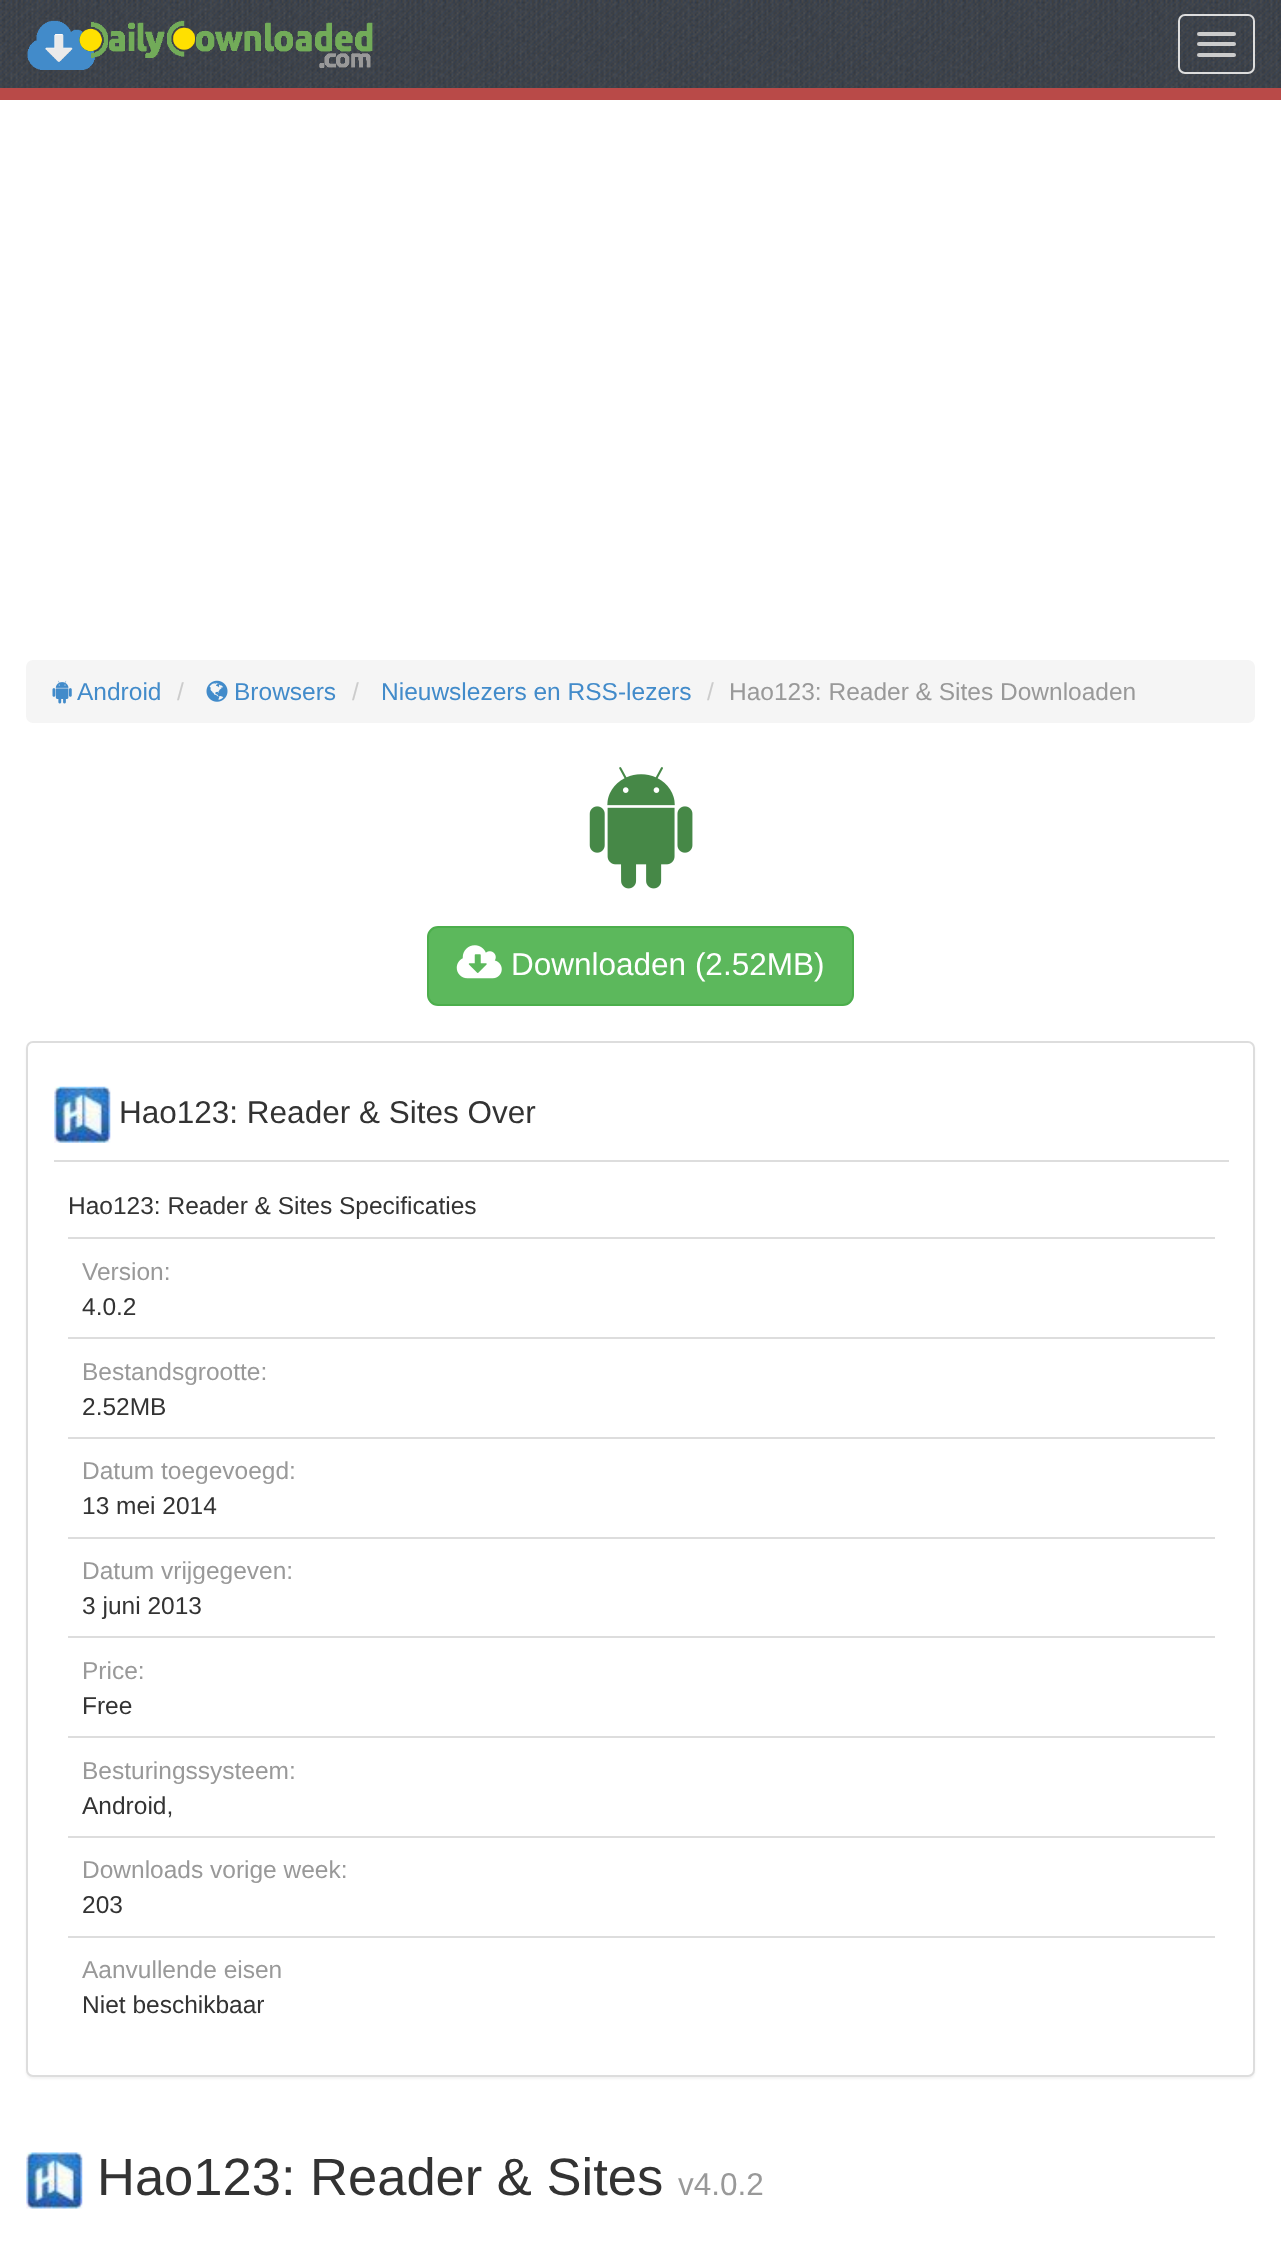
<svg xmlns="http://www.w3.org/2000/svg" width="1281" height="2241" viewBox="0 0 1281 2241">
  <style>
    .t1 { font: 24.5px Liberation Sans; fill: #428bca; }
    .t2 { font: 24.5px Liberation Sans; fill: #ccc; }
    .t3 { font: 24.5px Liberation Sans; fill: #999; }
    .t4 { font: 31.5px Liberation Sans; fill: #fff; }
    .t5 { font: 31.5px Liberation Sans; fill: #333; }
    .t6 { font: 24.5px Liberation Sans; fill: #333; }
    .t7 { font: 52.5px Liberation Sans; fill: #333; }
    .t8 { font: 31.5px Liberation Sans; fill: #999; }
  </style>
  <rect width="100%" height="100%" fill="#fff"/>
  <image x="0" y="0" width="1281" height="88" href="images/1.png"/>
  <rect x="0" y="88" width="1281" height="12" fill="#b94a48"/>
  <image x="27" y="20" width="346" height="50" href="images/2.png"/>
  <rect x="1179" y="15" width="75" height="58" rx="6" fill="none" stroke="#ddd" stroke-width="2"/>
  <rect x="1197" y="32" width="39" height="4" rx="2" fill="#ccc"/>
  <rect x="1197" y="42" width="39" height="4" rx="2" fill="#ccc"/>
  <rect x="1197" y="53" width="39" height="4" rx="2" fill="#ccc"/>
  <rect x="26" y="660" width="1229" height="63" rx="7" fill="#f5f5f5"/>
  <image x="52" y="680" width="20" height="24" href="images/3.png"/>
  <text x="77" y="700" class="t1">Android</text>
  <text x="177" y="700" class="t2">/</text>
  <image x="206" y="680" width="22" height="22" href="images/4.png"/>
  <text x="234" y="700" class="t1">Browsers</text>
  <text x="352" y="700" class="t2">/</text>
  <text x="381" y="700" class="t1">Nieuwslezers en RSS-lezers</text>
  <text x="707" y="700" class="t2">/</text>
  <text x="729" y="700" class="t3">Hao123: Reader &amp; Sites Downloaden</text>
  <image x="589" y="767" width="104" height="122" href="images/5.png"/>
  <rect x="428" y="927" width="425" height="78" rx="10" fill="#5cb85c" stroke="#4cae4c" stroke-width="2"/>
  <image x="456" y="945" width="46" height="34" href="images/6.png"/>
  <text x="511" y="975" class="t4">Downloaden (2.52MB)</text>
  <rect x="26" y="1043" width="1229" height="1036" rx="7" fill="#0000000d" filter="blur(1px)"/>
  <rect x="27" y="1042" width="1227" height="1034" rx="6" fill="#fff" stroke="#ddd" stroke-width="2"/>
  <image x="54" y="1086" width="57" height="57" href="images/7.png"/>
  <text x="119" y="1123" class="t5">Hao123: Reader &amp; Sites Over</text>
  <rect x="54" y="1160" width="1175" height="2" fill="#ddd"/>
  <text x="68" y="1214" class="t6">Hao123: Reader &amp; Sites Specificaties</text>
  <rect x="68" y="1237" width="1147" height="2" fill="#ddd"/>
  <text x="82" y="1280" class="t3">Version:</text>
  <text x="82" y="1315" class="t6">4.0.2</text>
  <rect x="68" y="1337" width="1147" height="2" fill="#ddd"/>
  <text x="82" y="1380" class="t3">Bestandsgrootte:</text>
  <text x="82" y="1415" class="t6">2.52MB</text>
  <rect x="68" y="1437" width="1147" height="2" fill="#ddd"/>
  <text x="82" y="1479" class="t3">Datum toegevoegd:</text>
  <text x="82" y="1514" class="t6">13 mei 2014</text>
  <rect x="68" y="1537" width="1147" height="2" fill="#ddd"/>
  <text x="82" y="1579" class="t3">Datum vrijgegeven:</text>
  <text x="82" y="1614" class="t6">3 juni 2013</text>
  <rect x="68" y="1636" width="1147" height="2" fill="#ddd"/>
  <text x="82" y="1679" class="t3">Price:</text>
  <text x="82" y="1714" class="t6">Free</text>
  <rect x="68" y="1736" width="1147" height="2" fill="#ddd"/>
  <text x="82" y="1779" class="t3">Besturingssysteem:</text>
  <text x="82" y="1814" class="t6">Android,</text>
  <rect x="68" y="1836" width="1147" height="2" fill="#ddd"/>
  <text x="82" y="1878" class="t3">Downloads vorige week:</text>
  <text x="82" y="1913" class="t6">203</text>
  <rect x="68" y="1936" width="1147" height="2" fill="#ddd"/>
  <text x="82" y="1978" class="t3">Aanvullende eisen</text>
  <text x="82" y="2013" class="t6">Niet beschikbaar</text>
  <image x="26" y="2152" width="57" height="57" href="images/8.png"/>
  <text x="97" y="2195" class="t7">Hao123: Reader &amp; Sites</text>
  <text x="678" y="2195" class="t8">v4.0.2</text>
</svg>
